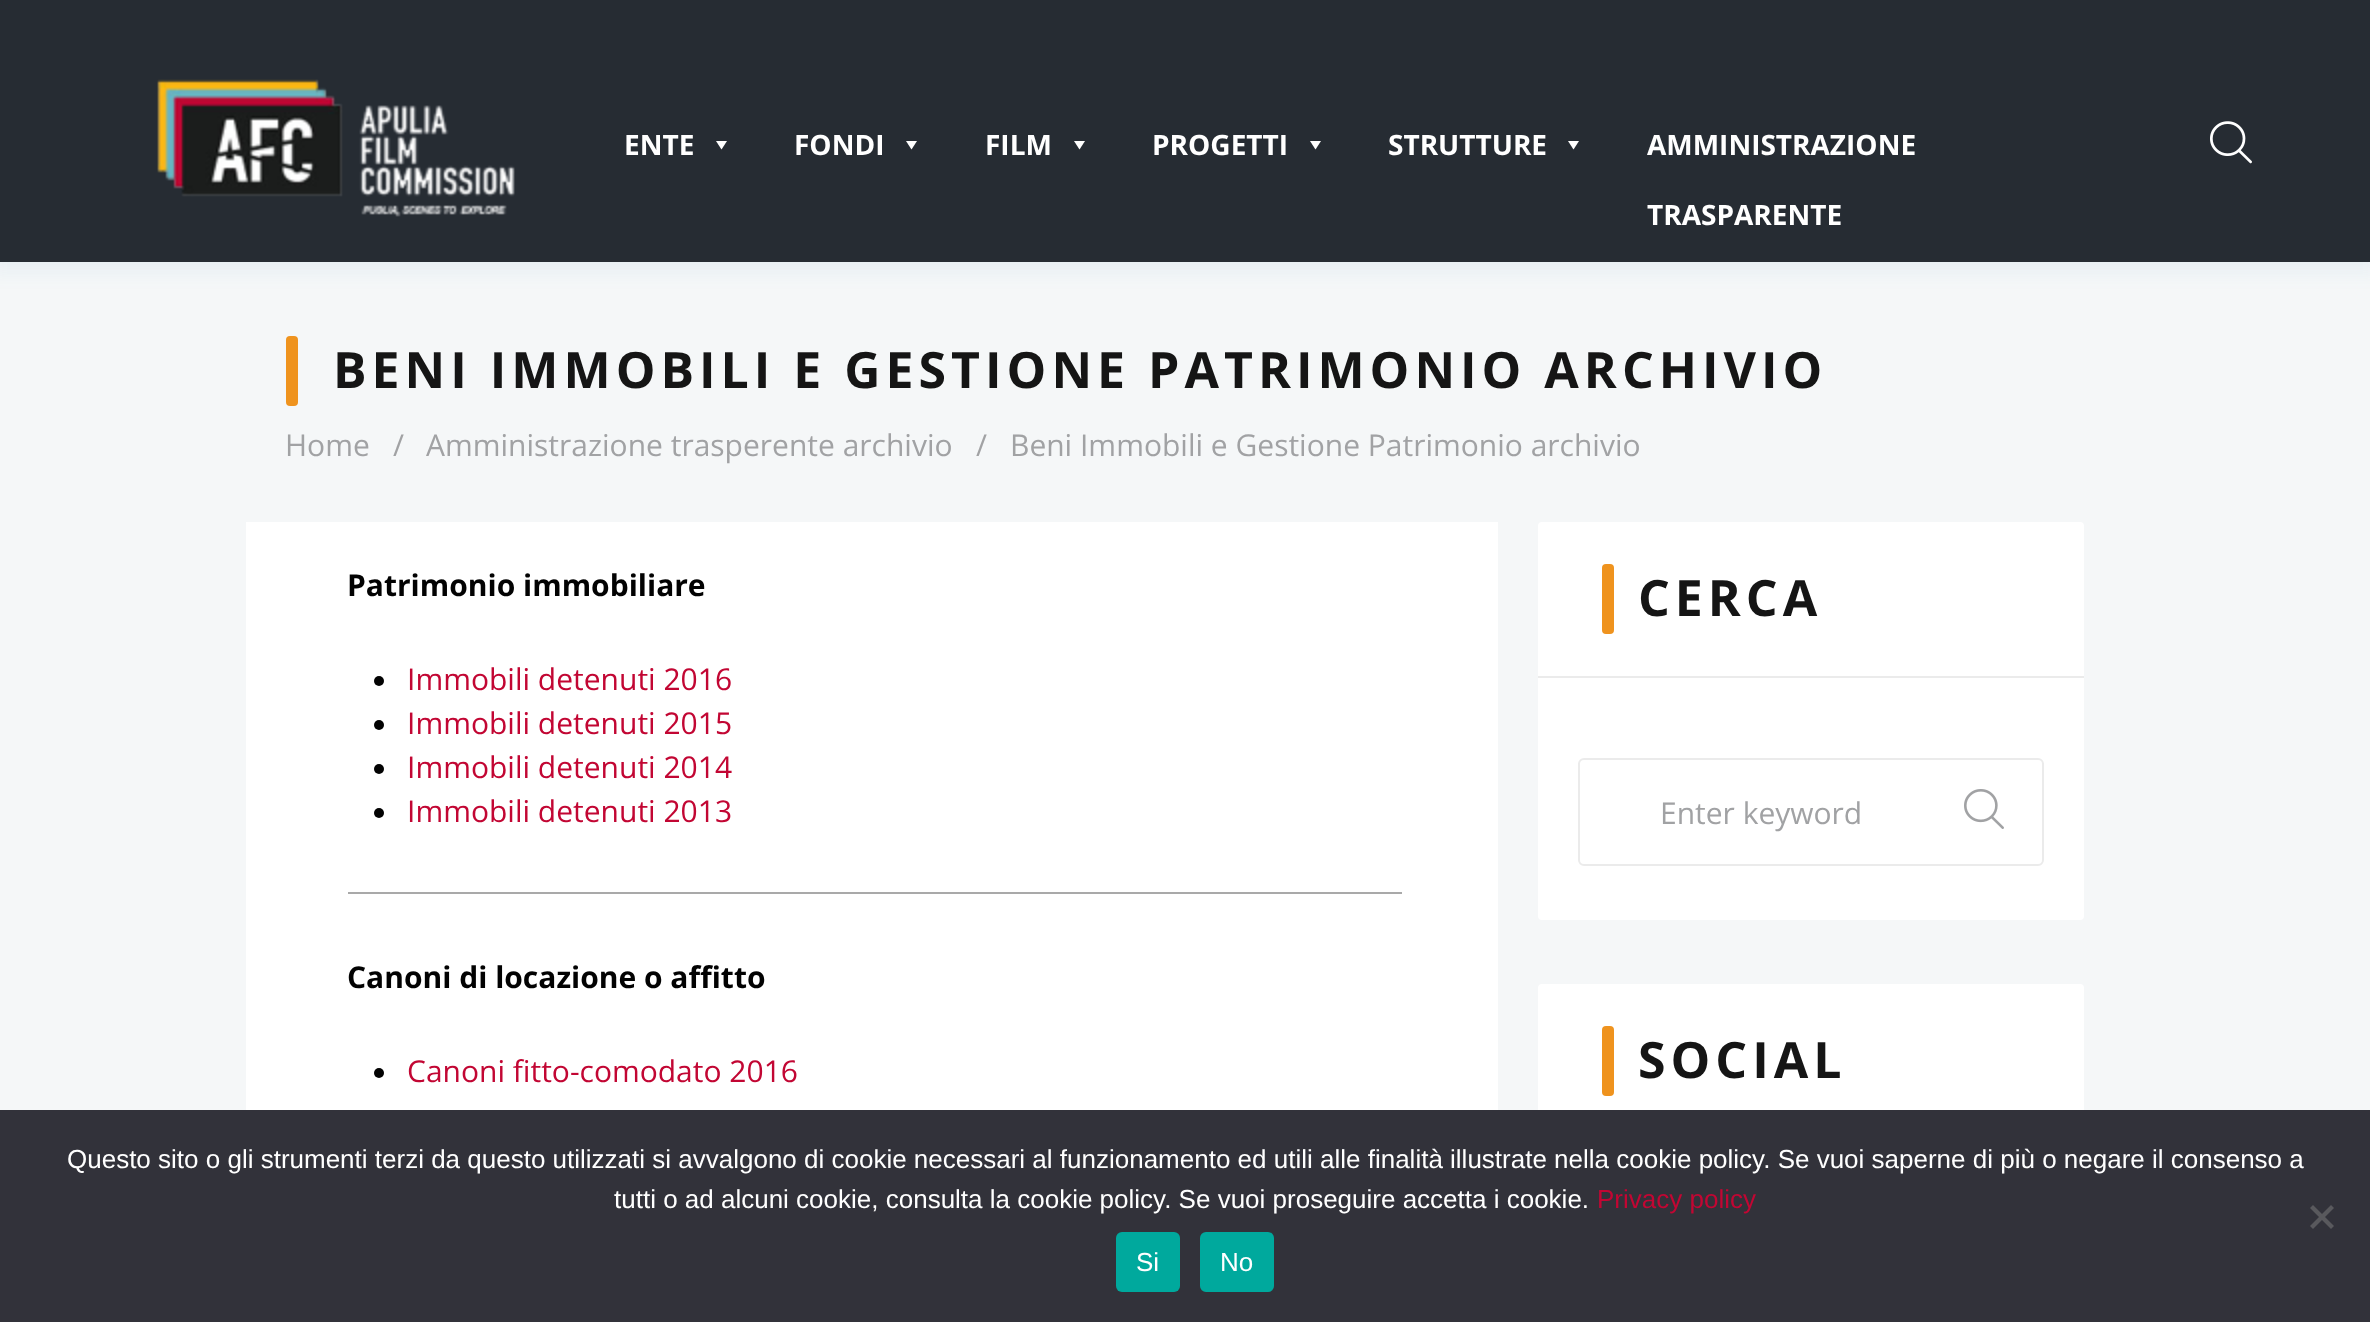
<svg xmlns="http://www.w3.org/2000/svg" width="2370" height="1322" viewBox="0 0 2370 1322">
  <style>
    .t1 { font: bold 28px Open Sans; fill: #fff; }
    .t2 { font: bold 50px Open Sans; letter-spacing: 5px; fill: #151515; }
    .t3 { font: 30px Open Sans; fill: #a1a2a4; }
    .t4 { font: bold 30px Open Sans; fill: #020202; }
    .t5 { font: 30px Open Sans; fill: #c20633; }
    .t6 { font: 26px Liberation Sans; fill: #fff; }
    .t7 { font: 26px Liberation Sans; fill: #c20633; }
  </style>
  <rect width="100%" height="100%" fill="#f5f7f8"/>
  <rect x="-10" y="-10" width="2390" height="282" fill="#187fac0f" filter="blur(10px)"/>
  <rect x="0" y="0" width="2370" height="262" fill="#262c33"/>
  <image x="157" y="79" width="358" height="138" href="images/1.png"/>
  <text x="624" y="155" class="t1">ENTE</text>
  <path d="M727 141L721.5 149.5L716 141Z" fill="#fff"/>
  <text x="794" y="155" class="t1">FONDI</text>
  <path d="M917 141L911.5 149.5L906 141Z" fill="#fff"/>
  <text x="985" y="155" class="t1">FILM</text>
  <path d="M1085 141L1079.5 149.5L1074 141Z" fill="#fff"/>
  <text x="1152" y="155" class="t1">PROGETTI</text>
  <path d="M1321 141L1315.5 149.5L1310 141Z" fill="#fff"/>
  <text x="1388" y="155" class="t1">STRUTTURE</text>
  <path d="M1579 141L1573.5 149.5L1568 141Z" fill="#fff"/>
  <text x="1647" y="155" class="t1">AMMINISTRAZIONE</text>
  <text x="1647" y="225" class="t1">TRASPARENTE</text>
  <image x="2210" y="121" width="42" height="43" href="images/2.png"/>
  <rect x="286" y="336" width="12" height="70" rx="4" fill="#ef931e"/>
  <text x="333" y="388" class="t2">BENI IMMOBILI E GESTIONE PATRIMONIO ARCHIVIO</text>
  <text x="285" y="456" class="t3">Home</text>
  <text x="393" y="456" class="t3">/</text>
  <text x="426" y="456" class="t3">Amministrazione trasperente archivio</text>
  <text x="976" y="456" class="t3">/</text>
  <text x="1010" y="456" class="t3">Beni Immobili e Gestione Patrimonio archivio</text>
  <rect x="246" y="522" width="1252" height="588" fill="#fff"/>
  <text x="347" y="596" class="t4">Patrimonio immobiliare</text>
  <circle cx="379" cy="681" r="5" fill="#020202"/>
  <text x="407" y="690" class="t5">Immobili detenuti 2016</text>
  <circle cx="379" cy="725" r="5" fill="#020202"/>
  <text x="407" y="734" class="t5">Immobili detenuti 2015</text>
  <circle cx="379" cy="769" r="5" fill="#020202"/>
  <text x="407" y="778" class="t5">Immobili detenuti 2014</text>
  <circle cx="379" cy="813" r="5" fill="#020202"/>
  <text x="407" y="822" class="t5">Immobili detenuti 2013</text>
  <rect x="348" y="892" width="1054" height="2" fill="#a9a9a9"/>
  <text x="347" y="988" class="t4">Canoni di locazione o affitto</text>
  <circle cx="379" cy="1073" r="5" fill="#020202"/>
  <text x="407" y="1082" class="t5">Canoni fitto-comodato 2016</text>
  <rect x="1538" y="522" width="546" height="398" rx="4" fill="#fff"/>
  <rect x="1602" y="564" width="12" height="70" rx="4" fill="#ef931e"/>
  <text x="1638" y="616" class="t2">CERCA</text>
  <rect x="1538" y="676" width="546" height="2" fill="#ebebeb"/>
  <rect x="1579" y="759" width="464" height="106" rx="5" fill="none" stroke="#ebebeb" stroke-width="2"/>
  <text x="1660" y="824" class="t3">Enter keyword</text>
  <image x="1964" y="789" width="40" height="40" href="images/3.png"/>
  <rect x="1538" y="984" width="546" height="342" rx="4" fill="#fff"/>
  <rect x="1602" y="1026" width="12" height="70" rx="4" fill="#ef931e"/>
  <text x="1638" y="1078" class="t2">SOCIAL</text>
  <rect x="0" y="1110" width="2370" height="212" fill="#32323a"/>
  <text x="67" y="1168" class="t6">Questo sito o gli strumenti terzi da questo utilizzati si avvalgono di cookie necessari al funzionamento ed utili alle finalità illustrate nella cookie policy. Se vuoi saperne di più o negare il consenso a</text>
  <text x="614" y="1208" class="t6">tutti o ad alcuni cookie, consulta la cookie policy. Se vuoi proseguire accetta i cookie.</text>
  <text x="1597" y="1208" class="t7">Privacy policy</text>
  <path d="M2331 1205L2334 1208L2313 1229L2310 1226Z" fill="#59595d"/>
  <path d="M2310 1208L2313 1205L2334 1226L2331 1229Z" fill="#59595d"/>
  <rect x="1116" y="1232" width="64" height="60" rx="6" fill="#00a99d"/>
  <text x="1136" y="1271" class="t6">Si</text>
  <rect x="1200" y="1232" width="74" height="60" rx="6" fill="#00a99d"/>
  <text x="1220" y="1271" class="t6">No</text>
</svg>
